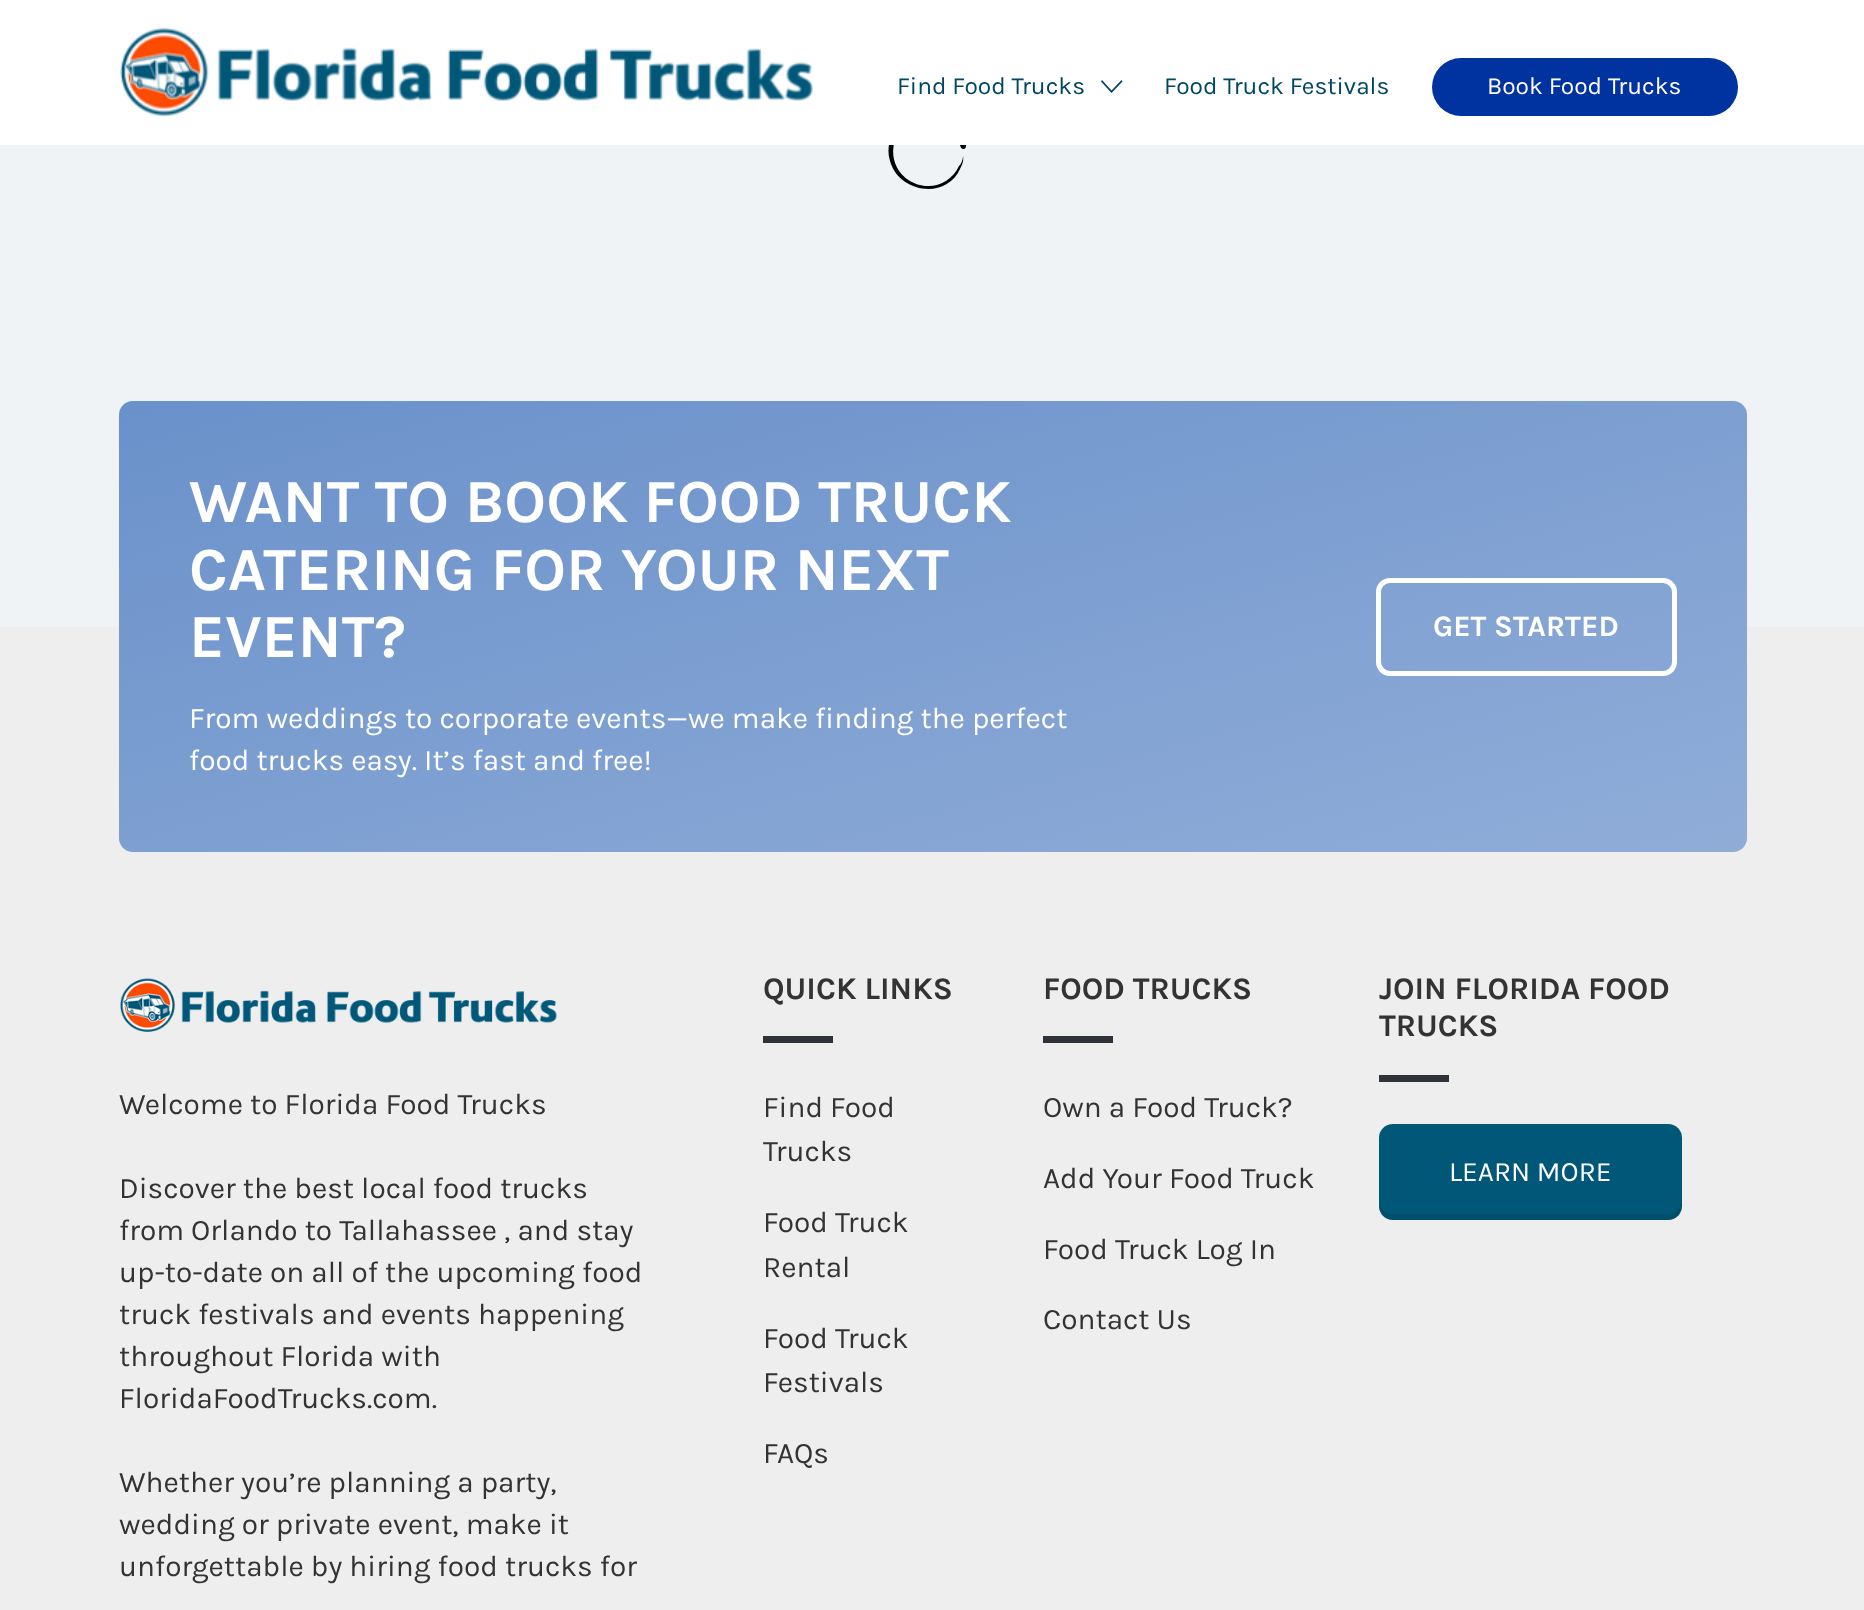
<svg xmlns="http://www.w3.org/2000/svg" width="1864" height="1610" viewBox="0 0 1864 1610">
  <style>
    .t1 { font: 24.5px Karla; fill: #004664; }
    .t2 { font: 24.5px Karla; fill: #fff; }
    .t3 { font: bold 61.25px Karla; fill: #fff; }
    .t4 { font: 29.75px Karla; fill: #fff; }
    .t5 { font: bold 29.75px Karla; fill: #fff; }
    .t6 { font: 29.75px Karla; fill: #333; }
    .t7 { font: bold 31.5px Karla; fill: #333; }
    .t8 { font: 28px Karla; fill: #fff; }
  </style>
  <defs>
    <linearGradient id="g1" gradientUnits="userSpaceOnUse" x1="816" y1="207" x2="1049" y2="1046"><stop offset="0" stop-color="#6a91ca"/><stop offset="0.25" stop-color="#7498ce"/><stop offset="0.5" stop-color="#7d9fd1"/><stop offset="0.75" stop-color="#87a6d5"/><stop offset="1" stop-color="#90add8"/></linearGradient>
  </defs>
  <rect width="100%" height="100%" fill="#f0f3f6"/>
  <path d="M966 146C966 147 965 149 964 149C960 150 960 143 959 141L956 134C947 118 924 113 908 123C886 139 889 172 914 183C932 191 951 183 959 166C961 164 963 160 963 156C964 161 962 165 960 169C946 200 899 193 890 161C879 121 934 94 959 128C961 132 966 140 966 146Z" fill="#000"/>
  <rect x="0" y="0" width="1864" height="145" fill="#fff"/>
  <image x="120" y="27" width="693" height="90" href="images/1.png"/>
  <text x="897" y="94" class="t1">Find Food Trucks</text>
  <path d="M1121.5 80L1122.5 81.5L1111.5 93L1101 81.5L1102 80L1111.5 90.5Z" fill="#004664"/>
  <text x="1164" y="94" class="t1">Food Truck Festivals</text>
  <rect x="1432" y="58" width="306" height="58" rx="29" fill="#0033a0"/>
  <text x="1487" y="94" class="t2">Book Food Trucks</text>
  <rect x="0" y="627" width="1864" height="983" fill="#eee"/>
  <rect x="119" y="401" width="1628" height="451" rx="14" fill="url(#g1)"/>
  <text x="189" y="522" class="t3">WANT TO BOOK FOOD TRUCK</text>
  <text x="189" y="590" class="t3">CATERING FOR YOUR NEXT</text>
  <text x="189" y="657" class="t3">EVENT?</text>
  <text x="189" y="728" class="t4">From weddings to corporate events—we make finding the perfect</text>
  <text x="189" y="770" class="t4">food trucks easy. It’s fast and free!</text>
  <rect x="1378.5" y="580.5" width="296" height="93" rx="11.5" fill="none" stroke="#fff" stroke-width="5"/>
  <text x="1433" y="636" class="t5">GET STARTED</text>
  <image x="120" y="978" width="437" height="54" href="images/2.png"/>
  <text x="119" y="1114" class="t6">Welcome to Florida Food Trucks</text>
  <text x="119" y="1198" class="t6">Discover the best local food trucks</text>
  <text x="119" y="1240" class="t6">from Orlando to Tallahassee , and stay</text>
  <text x="119" y="1282" class="t6">up-to-date on all of the upcoming food</text>
  <text x="119" y="1324" class="t6">truck festivals and events happening</text>
  <text x="119" y="1366" class="t6">throughout Florida with</text>
  <text x="119" y="1408" class="t6">FloridaFoodTrucks.com.</text>
  <text x="119" y="1492" class="t6">Whether you’re planning a party,</text>
  <text x="119" y="1534" class="t6">wedding or private event, make it</text>
  <text x="119" y="1576" class="t6">unforgettable by hiring food trucks for</text>
  <text x="763" y="999" class="t7">QUICK LINKS</text>
  <rect x="763" y="1036" width="70" height="7" fill="#2f3339"/>
  <text x="763" y="1117" class="t6">Find Food</text>
  <text x="763" y="1161" class="t6">Trucks</text>
  <text x="763" y="1232" class="t6">Food Truck</text>
  <text x="763" y="1277" class="t6">Rental</text>
  <text x="763" y="1348" class="t6">Food Truck</text>
  <text x="763" y="1392" class="t6">Festivals</text>
  <text x="763" y="1463" class="t6">FAQs</text>
  <text x="1043" y="999" class="t7">FOOD TRUCKS</text>
  <rect x="1043" y="1036" width="70" height="7" fill="#2f3339"/>
  <text x="1043" y="1117" class="t6">Own a Food Truck?</text>
  <text x="1043" y="1188" class="t6">Add Your Food Truck</text>
  <text x="1043" y="1259" class="t6">Food Truck Log In</text>
  <text x="1043" y="1329" class="t6">Contact Us</text>
  <text x="1379" y="999" class="t7">JOIN FLORIDA FOOD</text>
  <text x="1379" y="1036" class="t7">TRUCKS</text>
  <rect x="1379" y="1075" width="70" height="7" fill="#2f3339"/>
  <rect x="1379" y="1124" width="303" height="96" rx="14" fill="#005778"/>
  <path d="M1379 1200V1206C1379 1214 1385 1220 1393 1220H1668C1676 1220 1682 1214 1682 1206V1200C1682 1208 1675 1214 1668 1214H1393C1385 1214 1379 1208 1379 1200Z" fill="#0000001a"/>
  <text x="1449" y="1181" class="t8">LEARN MORE</text>
</svg>
